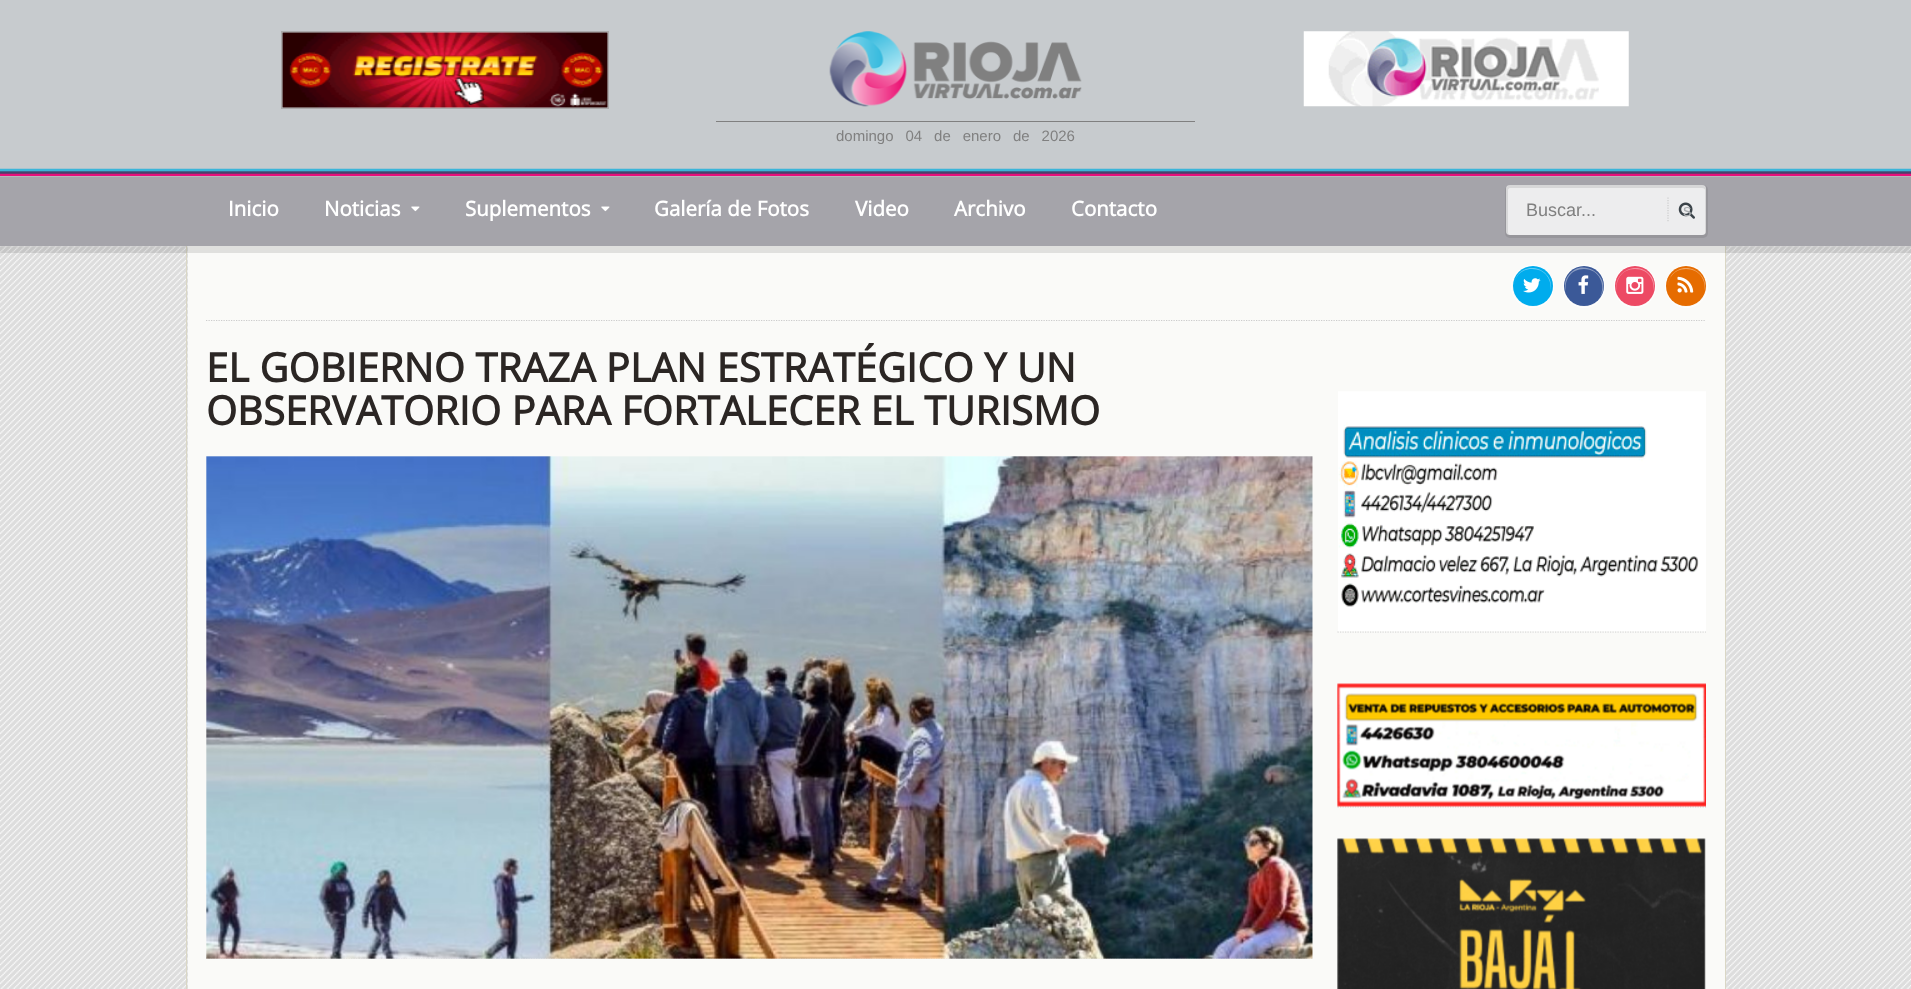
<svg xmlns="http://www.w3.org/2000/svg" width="1911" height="989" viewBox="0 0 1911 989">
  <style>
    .t1 { font: 15px Arimo; fill: #808080; }
    .t2 { font: bold 20.5px Open Sans; fill: #fff; }
    .t3 { font: 18px Liberation Sans; fill: #808080; }
    .t4 { font: 17px Liberation Sans; fill: #a9acaf; }
    .t5 { font: bold 40px Open Sans; fill: #2b2624; }
  </style>
  <rect width="100%" height="100%" fill="#fff"/>
  <image x="0" y="246" width="1911" height="1" href="images/1.png"/>
  <rect x="0" y="0" width="1911" height="169" fill="#c7cbce"/>
  <rect x="281.5" y="31.5" width="327" height="77" fill="none" stroke="#aaa"/>
  <image x="282" y="32" width="326" height="76" href="images/2.png"/>
  <image x="1303" y="31" width="326" height="76" href="images/3.png"/>
  <image x="829" y="31" width="253" height="76" href="images/4.png"/>
  <rect x="716" y="121" width="479" height="1" fill="#808080"/>
  <text x="836" y="141" word-spacing="7.75" class="t1">domingo 04 de enero de 2026</text>
  <image x="0" y="168" width="1911" height="8" href="images/5.png"/>
  <image x="0" y="246" width="1911" height="743" href="images/8.png"/>
  <rect x="188" y="246" width="1537" height="743" fill="#fafaf8"/>
  <rect x="1725" y="246" width="1" height="743" fill="#dad7c5"/>
  <rect x="186" y="246" width="1" height="743" fill="#dad7c5"/>
  <rect x="0" y="246" width="1911" height="7" fill="#0000001a"/>
  <rect x="0" y="177" width="1911" height="69" fill="#a5a4aa"/>
  <rect x="0" y="176" width="1911" height="1" fill="#b7b6bb"/>
  <text x="228" y="216" class="t2">Inicio</text>
  <text x="324" y="216" class="t2">Noticias</text>
  <image x="411" y="206" width="9" height="6" href="images/6.png"/>
  <text x="465" y="216" class="t2">Suplementos</text>
  <image x="601" y="206" width="9" height="6" href="images/6.png"/>
  <text x="654" y="216" class="t2">Galería de Fotos</text>
  <text x="855" y="216" class="t2">Video</text>
  <text x="954" y="216" class="t2">Archivo</text>
  <text x="1071" y="216" class="t2">Contacto</text>
  <rect x="1505" y="185" width="203" height="53" rx="5" fill="#2121221a" filter="blur(0.5px)"/>
  <rect x="1506" y="185" width="200" height="50" rx="4" fill="#ededee"/>
  <path d="M1510 188H1702C1704 188 1705 189 1705 190V232C1705 233 1705 234 1704 234C1705 234 1706 232 1706 231V189C1706 187 1704 185 1702 185H1510C1508 185 1506 187 1506 189V231C1506 233 1508 235 1510 235C1509 235 1508 234 1508 232V190C1508 189 1509 188 1510 188Z" fill="#2121221a"/>
  <path d="M1668 197.5V222.5" fill="none" stroke="#ccc" stroke-width="1.2" stroke-dasharray="1.25 1.25"/>
  <image x="1678" y="202" width="17" height="17" href="images/7.png"/>
  <text x="1526" y="216" class="t3">Buscar...</text>
  <text x="1683" y="216" class="t4">s</text>
  <path d="M206 320.5H1706" fill="none" stroke="#ccc" stroke-width="1.2" stroke-dasharray="1.25 1.25"/>
  <circle cx="1532.5" cy="286.5" r="21" fill="none" stroke="#fff"/>
  <circle cx="1533" cy="286" r="20" fill="#00aced"/>
  <path d="M1532 269C1546 269 1552 280.5 1550.5 291C1555.5 271.5 1529 259 1517 276C1515 279.5 1514 283 1514 287C1514 278 1520 269 1532 269Z" fill="#66cdf4"/>
  <image x="1523" y="278" width="18" height="15" href="images/9.png"/>
  <rect x="1563.5" y="265.5" width="41" height="42" rx="20.5" fill="none" stroke="#fff"/>
  <circle cx="1584" cy="286" r="20" fill="#3b5998"/>
  <path d="M1584 269C1600 269 1606 286 1600 297C1614 277 1582 255 1568 276C1565 280 1564 286 1566 291C1564 281 1570 269 1584 269Z" fill="#899bc1"/>
  <image x="1578" y="275" width="11" height="19" href="images/10.png"/>
  <rect x="1614.5" y="265.5" width="41" height="42" rx="20.5" fill="none" stroke="#fff"/>
  <circle cx="1635" cy="286" r="20" fill="#ed4a64"/>
  <path d="M1635 269C1649 269 1655 281 1653 291C1655 286 1654 280 1651 276C1639 259 1612 271 1617 291C1615 281 1621 269 1635 269Z" fill="#f492a2"/>
  <image x="1626" y="276" width="18" height="18" href="images/11.png"/>
  <circle cx="1686.5" cy="286.5" r="21" fill="none" stroke="#fff"/>
  <circle cx="1686" cy="286" r="20" fill="#e66c00"/>
  <path d="M1686 269C1700 269 1706 280.5 1704.5 291C1709.5 271.5 1683 259 1671 276C1669 279.5 1668 283 1668 287C1668 278 1674 269 1686 269Z" fill="#f0a766"/>
  <image x="1677" y="276" width="17" height="17" href="images/12.png"/>
  <text x="206" y="382" class="t5">EL GOBIERNO TRAZA PLAN ESTRATÉGICO Y UN</text>
  <text x="206" y="425" class="t5">OBSERVATORIO PARA FORTALECER EL TURISMO</text>
  <path d="M206 958H1312.5" fill="none" stroke="#bfbfbf" stroke-width="1.2" stroke-dasharray="1.25 1.25"/>
  <image x="206" y="456" width="1107" height="503" href="images/13.png"/>
  <path d="M1337.5 632H1706" fill="none" stroke="#ccc" stroke-width="1.2" stroke-dasharray="1.25 1.25"/>
  <image x="1338" y="391" width="368" height="241" href="images/14.png"/>
  <path d="M1337.5 807H1706" fill="none" stroke="#ccc" stroke-width="1.2" stroke-dasharray="1.25 1.25"/>
  <image x="1337" y="683" width="369" height="124" href="images/15.png"/>
  <image x="1337" y="838" width="369" height="151" href="images/16.png"/>
</svg>
